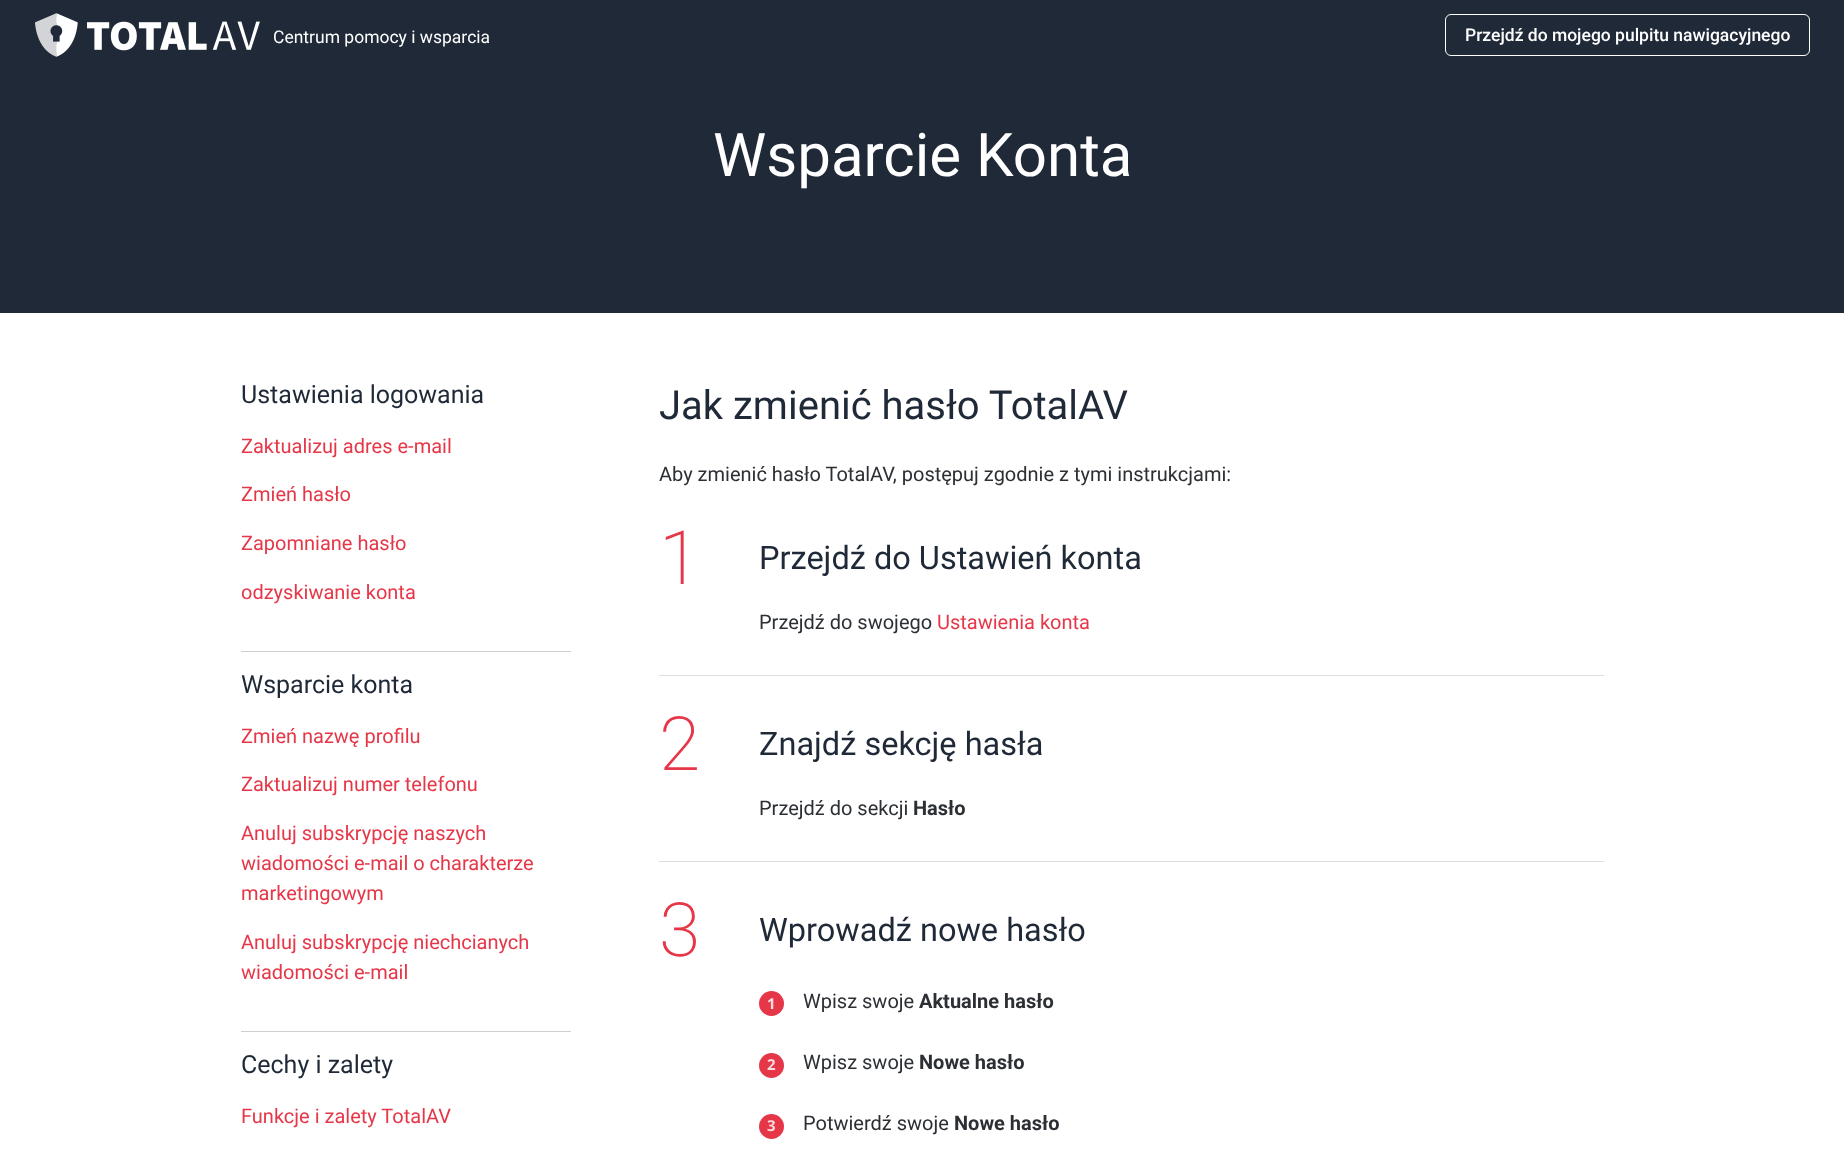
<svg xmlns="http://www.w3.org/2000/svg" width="1844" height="1158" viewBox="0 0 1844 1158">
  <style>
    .t1 { font: 17.5px Roboto; fill: #fff; }
    .t2 { font: 500 17.5px Roboto; fill: #fff; }
    .t3 { font: 60px Roboto; fill: #fff; }
    .t4 { font: 25px Roboto; fill: #1f2937; }
    .t5 { font: 20px Roboto; fill: #e63748; }
    .t6 { font: 40px Roboto; fill: #1f2937; }
    .t7 { font: 20px Roboto; fill: #2c3035; }
    .t8 { font: 200 75px Roboto; fill: #e63748; }
    .t9 { font: 32.5px Roboto; fill: #1f2937; }
    .t10 { font: bold 20px Roboto; fill: #2c3035; }
    .t11 { font: bold 15px Open Sans; fill: #fbdde0; }
  </style>
  <rect width="100%" height="100%" fill="#fff"/>
  <rect x="0" y="0" width="1844" height="313" fill="#1f2937"/>
  <image x="35" y="13" width="225" height="44" href="images/1.png"/>
  <text x="273" y="43" class="t1">Centrum pomocy i wsparcia</text>
  <rect x="1445.5" y="14.5" width="364" height="41" rx="5.5" fill="none" stroke="#fff"/>
  <text x="1465" y="41" class="t2">Przejdź do mojego pulpitu nawigacyjnego</text>
  <text x="713" y="176" class="t3">Wsparcie Konta</text>
  <text x="241" y="403" class="t4">Ustawienia logowania</text>
  <rect x="241" y="651" width="330" height="1" fill="#cfcfcf"/>
  <text x="241" y="453" class="t5">Zaktualizuj adres e-mail</text>
  <text x="241" y="501" class="t5">Zmień hasło</text>
  <text x="241" y="550" class="t5">Zapomniane hasło</text>
  <text x="241" y="599" class="t5">odzyskiwanie konta</text>
  <text x="241" y="693" class="t4">Wsparcie konta</text>
  <rect x="241" y="1031" width="330" height="1" fill="#cfcfcf"/>
  <text x="241" y="743" class="t5">Zmień nazwę profilu</text>
  <text x="241" y="791" class="t5">Zaktualizuj numer telefonu</text>
  <text x="241" y="840" class="t5">Anuluj subskrypcję naszych</text>
  <text x="241" y="870" class="t5">wiadomości e-mail o charakterze</text>
  <text x="241" y="900" class="t5">marketingowym</text>
  <text x="241" y="949" class="t5">Anuluj subskrypcję niechcianych</text>
  <text x="241" y="979" class="t5">wiadomości e-mail</text>
  <text x="241" y="1073" class="t4">Cechy i zalety</text>
  <text x="241" y="1123" class="t5">Funkcje i zalety TotalAV</text>
  <text x="659" y="419" class="t6">Jak zmienić hasło TotalAV</text>
  <text x="659" y="481" class="t7">Aby zmienić hasło TotalAV, postępuj zgodnie z tymi instrukcjami:</text>
  <rect x="659" y="675" width="945" height="1" fill="#dedede"/>
  <text x="659" y="584" class="t8">1</text>
  <text x="759" y="569" class="t9">Przejdź do Ustawień konta</text>
  <text x="759" y="629" class="t7">Przejdź do swojego</text>
  <text x="937" y="629" class="t5">Ustawienia konta</text>
  <rect x="659" y="861" width="945" height="1" fill="#dedede"/>
  <text x="659" y="770" class="t8">2</text>
  <text x="759" y="755" class="t9">Znajdź sekcję hasła</text>
  <text x="759" y="815" class="t7">Przejdź do sekcji</text>
  <text x="913" y="815" class="t10">Hasło</text>
  <text x="659" y="956" class="t8">3</text>
  <text x="759" y="941" class="t9">Wprowadź nowe hasło</text>
  <circle cx="771.5" cy="1003.5" r="12.5" fill="#e63748"/>
  <text x="767" y="1009" class="t11">1</text>
  <text x="803" y="1008" class="t7">Wpisz swoje</text>
  <text x="919" y="1008" class="t10">Aktualne hasło</text>
  <circle cx="771.5" cy="1065.5" r="12.5" fill="#e63748"/>
  <text x="767" y="1070" class="t11">2</text>
  <text x="803" y="1069" class="t7">Wpisz swoje</text>
  <text x="919" y="1069" class="t10">Nowe hasło</text>
  <circle cx="771.5" cy="1126.5" r="12.5" fill="#e63748"/>
  <text x="767" y="1131" class="t11">3</text>
  <text x="803" y="1130" class="t7">Potwierdź swoje</text>
  <text x="954" y="1130" class="t10">Nowe hasło</text>
</svg>
